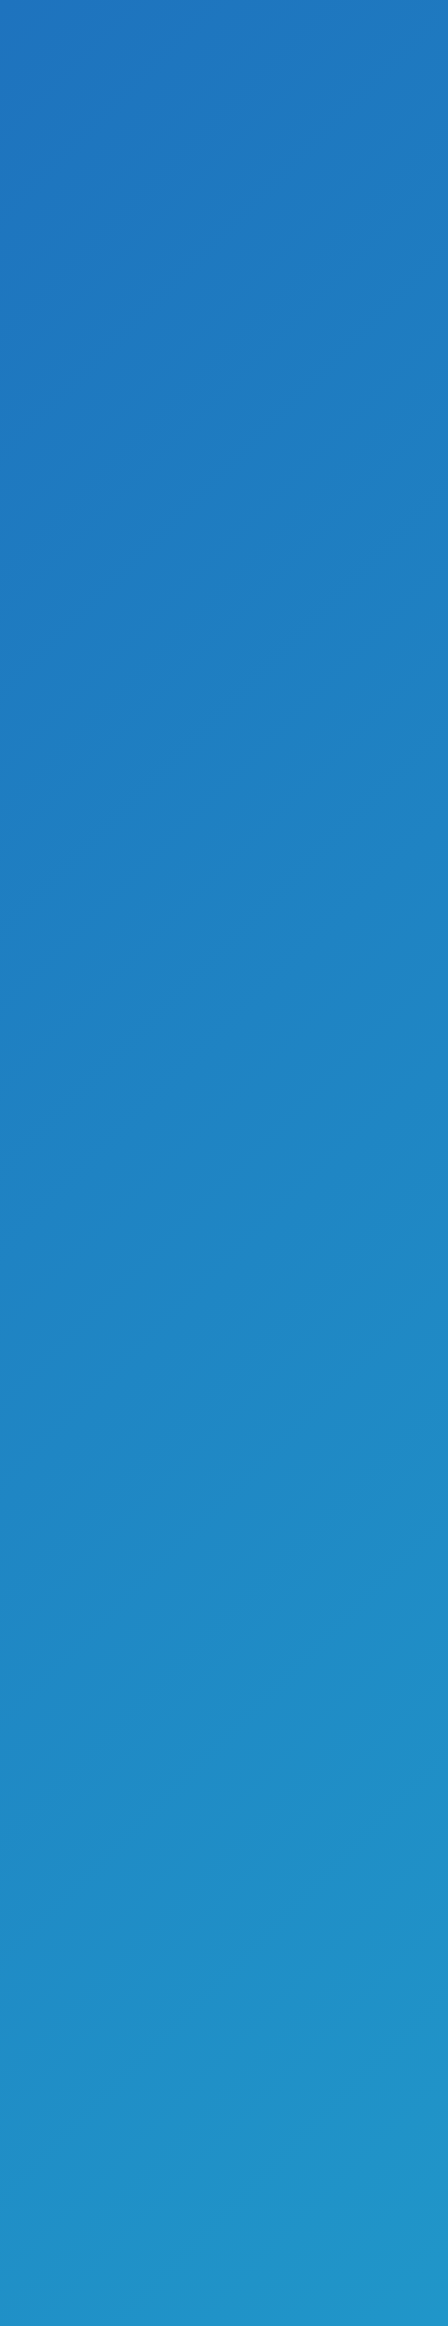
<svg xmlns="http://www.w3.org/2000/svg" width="448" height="2326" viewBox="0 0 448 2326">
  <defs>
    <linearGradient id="g1" gradientUnits="userSpaceOnUse" x1="-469" y1="470" x2="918" y2="1857"><stop offset="0" stop-color="#1e73be"/><stop offset="1" stop-color="#2096c9"/></linearGradient>
  </defs>
  <rect width="100%" height="100%" fill="#fff"/>
  <rect x="0" y="0" width="448" height="2326" fill="url(#g1)"/>
</svg>
